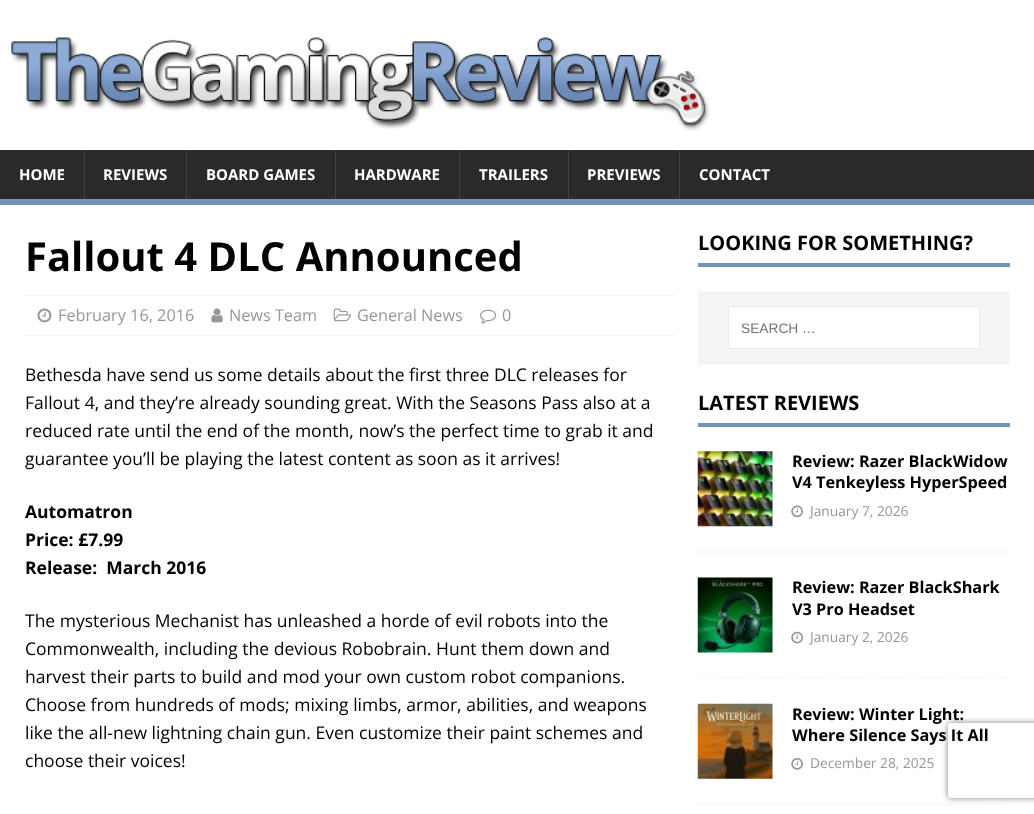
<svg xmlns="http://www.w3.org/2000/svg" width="1034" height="814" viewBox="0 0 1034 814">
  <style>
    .t1 { font: bold 15px Open Sans; fill: #fff; }
    .t2 { font: bold 40px Open Sans; fill: #000; }
    .t3 { font: 16.25px Open Sans; fill: #979797; }
    .t4 { font: 17.5px Open Sans; fill: #000; }
    .t5 { font: bold 17.5px Open Sans; fill: #000; }
    .t6 { font: bold 20px Open Sans; fill: #000; }
    .t7 { font: 13.75px Liberation Sans; fill: #757575; }
    .t8 { font: bold 16.25px Open Sans; fill: #000; }
    .t9 { font: 13.75px Open Sans; fill: #979797; }
  </style>
  <defs>
    <clipPath id="clip1"><path d="M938 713H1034V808H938ZM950.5 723H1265.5C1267 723 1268 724 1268 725.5V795.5C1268 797 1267 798 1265.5 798H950.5C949 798 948 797 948 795.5V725.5C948 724 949 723 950.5 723Z" clip-rule="evenodd"/></clipPath>
  </defs>
  <rect width="100%" height="100%" fill="#fff"/>
  <image x="11" y="37" width="699" height="94" href="images/1.png"/>
  <rect x="0" y="150" width="1034" height="49" fill="#2a2a2a"/>
  <rect x="0" y="199" width="1034" height="6" fill="#7592be"/>
  <text x="19" y="180" class="t1">HOME</text>
  <rect x="84" y="150" width="1" height="49" fill="#3f3f3f"/>
  <text x="103" y="180" class="t1">REVIEWS</text>
  <rect x="186" y="150" width="1" height="49" fill="#3f3f3f"/>
  <text x="206" y="180" class="t1">BOARD GAMES</text>
  <rect x="335" y="150" width="1" height="49" fill="#3f3f3f"/>
  <text x="354" y="180" class="t1">HARDWARE</text>
  <rect x="459" y="150" width="1" height="49" fill="#3f3f3f"/>
  <text x="479" y="180" class="t1">TRAILERS</text>
  <rect x="568" y="150" width="1" height="49" fill="#3f3f3f"/>
  <text x="587" y="180" class="t1">PREVIEWS</text>
  <rect x="679" y="150" width="1" height="49" fill="#3f3f3f"/>
  <text x="699" y="180" class="t1">CONTACT</text>
  <text x="25" y="271" class="t2">Fallout 4 DLC Announced</text>
  <path d="M25 295.5H674" fill="none" stroke="#ebebeb" stroke-width="1.2" stroke-dasharray="1.25 1.25"/>
  <path d="M25 335.5H674" fill="none" stroke="#ebebeb" stroke-width="1.2" stroke-dasharray="1.25 1.25"/>
  <image x="37" y="308" width="15" height="15" href="images/2.png"/>
  <text x="58" y="321" class="t3">February 16, 2016</text>
  <image x="211" y="308" width="12" height="15" href="images/3.png"/>
  <text x="229" y="321" class="t3">News Team</text>
  <image x="333" y="308" width="18" height="14" href="images/4.png"/>
  <text x="357" y="321" class="t3">General News</text>
  <image x="480" y="309" width="17" height="15" href="images/5.png"/>
  <text x="502" y="321" class="t3">0</text>
  <text x="25" y="381" class="t4">Bethesda have send us some details about the first three DLC releases for</text>
  <text x="25" y="409" class="t4">Fallout 4, and they’re already sounding great. With the Seasons Pass also at a</text>
  <text x="25" y="437" class="t4">reduced rate until the end of the month, now’s the perfect time to grab it and</text>
  <text x="25" y="465" class="t4">guarantee you’ll be playing the latest content as soon as it arrives!</text>
  <text x="25" y="518" class="t5">Automatron</text>
  <text x="25" y="546" class="t5">Price: £7.99</text>
  <text x="25" y="574" class="t5" xml:space="preserve">Release:  March 2016</text>
  <text x="25" y="627" class="t4">The mysterious Mechanist has unleashed a horde of evil robots into the</text>
  <text x="25" y="655" class="t4">Commonwealth, including the devious Robobrain. Hunt them down and</text>
  <text x="25" y="683" class="t4">harvest their parts to build and mod your own custom robot companions.</text>
  <text x="25" y="711" class="t4">Choose from hundreds of mods; mixing limbs, armor, abilities, and weapons</text>
  <text x="25" y="739" class="t4">like the all-new lightning chain gun. Even customize their paint schemes and</text>
  <text x="25" y="767" class="t4">choose their voices!</text>
  <rect x="698" y="263" width="312" height="4" fill="#7592be"/>
  <text x="698" y="250" class="t6">LOOKING FOR SOMETHING?</text>
  <rect x="698" y="291" width="312" height="74" fill="#f5f5f5"/>
  <rect x="728.5" y="306.5" width="251" height="42" fill="#fff" stroke="#ebebeb"/>
  <text x="741" y="333" class="t7">SEARCH …</text>
  <rect x="698" y="423" width="312" height="4" fill="#7592be"/>
  <text x="698" y="410" class="t6">LATEST REVIEWS</text>
  <path d="M697.5 552H1010" fill="none" stroke="#ebebeb" stroke-width="1.2" stroke-dasharray="1.25 1.25"/>
  <image x="697" y="451" width="76" height="76" href="images/6.png"/>
  <text x="792" y="467" class="t8">Review: Razer BlackWidow</text>
  <text x="792" y="488" class="t8">V4 Tenkeyless HyperSpeed</text>
  <image x="791" y="505" width="12" height="13" href="images/7.png"/>
  <text x="810" y="516" class="t9">January 7, 2026</text>
  <path d="M697.5 678H1010" fill="none" stroke="#ebebeb" stroke-width="1.2" stroke-dasharray="1.25 1.25"/>
  <image x="697" y="577" width="76" height="76" href="images/8.png"/>
  <text x="792" y="593" class="t8">Review: Razer BlackShark</text>
  <text x="792" y="615" class="t8">V3 Pro Headset</text>
  <image x="791" y="631" width="12" height="13" href="images/9.png"/>
  <text x="810" y="642" class="t9">January 2, 2026</text>
  <path d="M697.5 804.5H1010" fill="none" stroke="#ebebeb" stroke-width="1.2" stroke-dasharray="1.25 1.25"/>
  <image x="697" y="703" width="76" height="76" href="images/10.png"/>
  <text x="792" y="720" class="t8">Review: Winter Light:</text>
  <text x="792" y="741" class="t8">Where Silence Says It All</text>
  <image x="791" y="758" width="12" height="12" href="images/11.png"/>
  <text x="810" y="768" class="t9">December 28, 2025</text>
  <g clip-path="url(#clip1)">
    <rect x="948" y="723" width="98" height="75" rx="2.5" fill="#808080" filter="blur(3px)"/>
  </g>
</svg>
